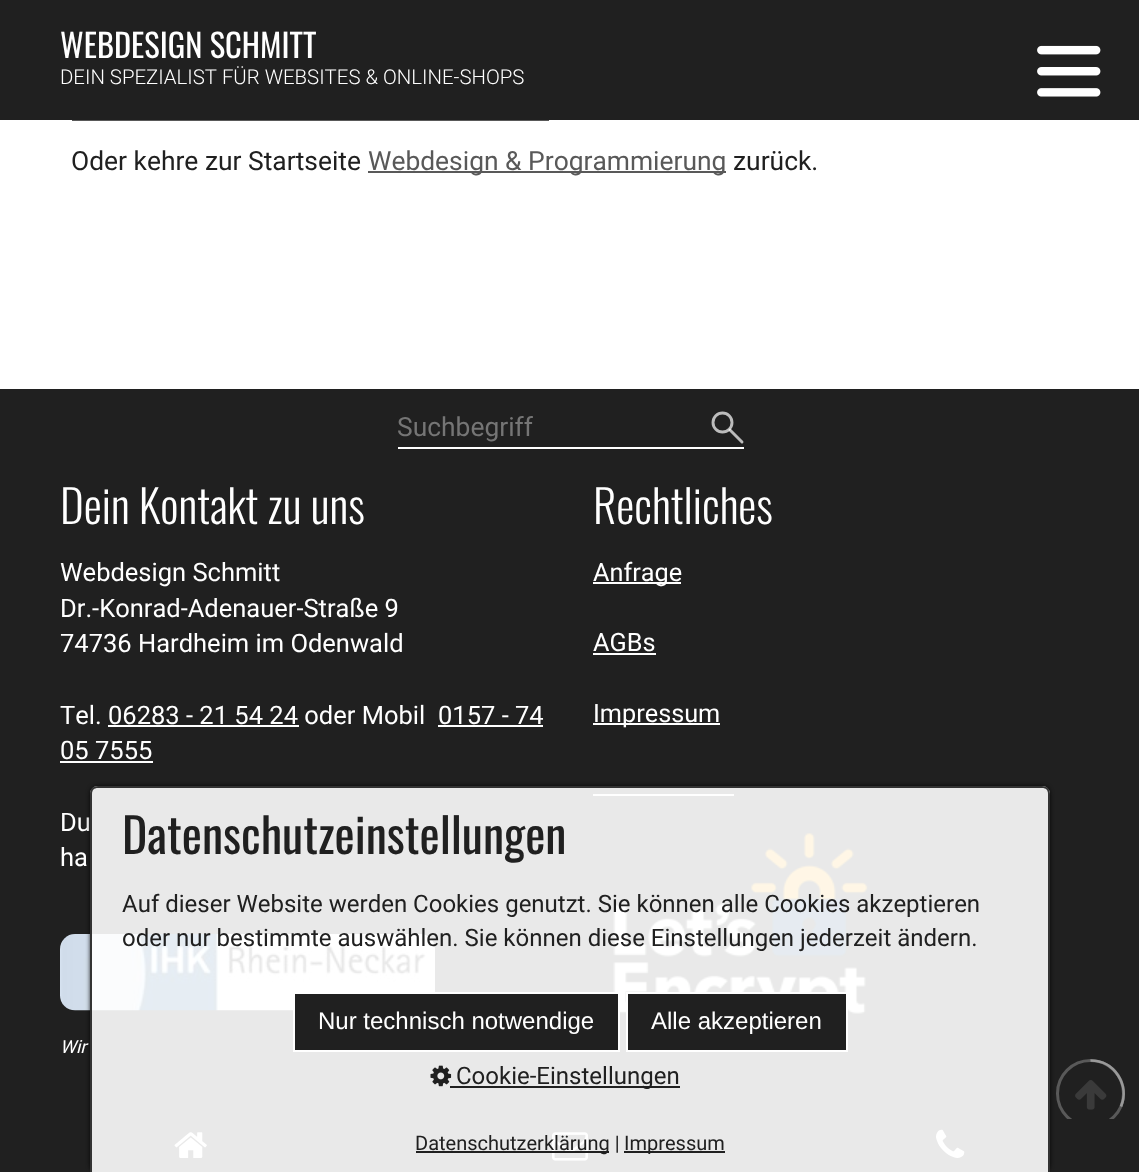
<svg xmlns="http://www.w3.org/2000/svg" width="1139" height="1172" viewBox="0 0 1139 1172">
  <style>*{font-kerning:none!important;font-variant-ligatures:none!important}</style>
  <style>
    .t1 { font: 32.5px Oswald; fill: #fff; }
    .t2 { font: 300 20.4px Roboto; fill: #fff; }
    .t3 { font: 26.4px Roboto; fill: #202020; }
    .t4 { font: 26.4px Roboto; fill: #595959; }
    .t5 { font: 26.4px Roboto; fill: #757575; }
    .t6 { font: 300 45.5px Oswald; fill: #fff; }
    .t7 { font: 25.5px Roboto; fill: #fff; }
    .t8 { font: italic 18px Roboto; fill: #fff; }
    .t9 { font: 25.25px Roboto; fill: #fff; }
    .t10 { font: 48px Oswald; fill: #202020; }
    .t11 { font: 24px Roboto; fill: #202020; }
    .t12 { font: 24px Liberation Sans; fill: #fff; }
    .t13 { font: 20px Roboto; fill: #202020; }
  </style>
  <defs>
    <clipPath id="clip1"><path d="M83 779H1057V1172H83ZM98 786H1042C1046.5 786 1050 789.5 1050 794V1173H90V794C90 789.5 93.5 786 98 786Z" clip-rule="evenodd"/></clipPath>
  </defs>
  <rect width="100%" height="100%" fill="#fff"/>
  <rect x="0" y="0" width="1139" height="120" fill="#202020"/>
  <text x="60" y="58" class="t1">WEBDESIGN SCHMITT</text>
  <text x="60" y="84" class="t2">DEIN SPEZIALIST FÜR WEBSITES &amp; ONLINE-SHOPS</text>
  <image x="1037" y="45" width="64" height="52" href="images/1.png"/>
  <rect x="0" y="389" width="1139" height="783" fill="#202020"/>
  <image x="174" y="1132" width="33" height="26" href="images/2.png"/>
  <image x="552" y="1132" width="36" height="29" href="images/3.png"/>
  <circle cx="1090.5" cy="1093.5" r="33" fill="none" stroke="#595959" stroke-width="3"/>
  <rect x="1067" y="1119" width="47" height="9" fill="#202020"/>
  <image x="936" y="1129" width="29" height="29" href="images/4.png"/>
  <rect x="72" y="120" width="477" height="1" fill="#595959"/>
  <text x="71" y="170" class="t3">Oder kehre zur Startseite</text>
  <rect x="368" y="171" width="358" height="2" fill="#595959"/>
  <text x="368" y="170" class="t4">Webdesign &amp; Programmierung</text>
  <text x="733" y="170" class="t3">zurück.</text>
  <rect x="398" y="447" width="346" height="2" fill="#fff"/>
  <text x="397" y="436" class="t5">Suchbegriff</text>
  <circle cx="722.5" cy="422.5" r="9.5" fill="none" stroke="#bcbcbc" stroke-width="2.9"/>
  <path d="M730 430L742 442" fill="none" stroke="#ffffffb3" stroke-width="2.9" stroke-linecap="round"/>
  <text x="60" y="524" class="t6">Dein Kontakt zu uns</text>
  <text x="60" y="581" class="t7">Webdesign Schmitt</text>
  <text x="60" y="617" class="t7">Dr.-Konrad-Adenauer-Straße 9</text>
  <text x="60" y="652" class="t7">74736 Hardheim im Odenwald</text>
  <text x="60" y="724" class="t7">Tel. 06283 - 21 54 24 oder Mobil</text>
  <rect x="108" y="725" width="191" height="2" fill="#fff"/>
  <text x="438" y="724" class="t7">0157 - 74</text>
  <rect x="438" y="725" width="105" height="2" fill="#fff"/>
  <text x="60" y="759" class="t7">05 7555</text>
  <rect x="60" y="761" width="93" height="2" fill="#fff"/>
  <text x="60" y="831" class="t7">Du</text>
  <text x="60" y="866" class="t7">ha</text>
  <image x="60" y="934" width="375" height="77" href="images/5.png"/>
  <text x="60" y="1053" class="t8">Wir</text>
  <text x="593" y="524" class="t6">Rechtliches</text>
  <rect x="593" y="582" width="88" height="2" fill="#fff"/>
  <text x="593" y="581" class="t9">Anfrage</text>
  <text x="593" y="651" class="t9">AGBs</text>
  <rect x="593" y="653" width="63" height="2" fill="#fff"/>
  <rect x="593" y="723" width="127" height="2" fill="#fff"/>
  <text x="593" y="722" class="t9">Impressum</text>
  <rect x="593" y="794" width="141" height="2" fill="#fff"/>
  <image x="613" y="832" width="255" height="183" href="images/6.png"/>
  <g clip-path="url(#clip1)">
    <rect x="90" y="786" width="960" height="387" rx="8" fill="#000000cc" filter="blur(2px)"/>
  </g>
  <path d="M98 786H1042C1046.5 786 1050 789.5 1050 794V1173H90V794C90 789.5 93.5 786 98 786Z" fill="#ffffffe6"/>
  <path d="M98 786H1042C1047 786 1050 789 1050 794V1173H90V794C90 789 93 786 98 786ZM98 788H1042C1046 788 1048 790 1048 794V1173H92V794C92 790 94 788 98 788Z" fill="#333" fill-rule="evenodd"/>
  <text x="122" y="854" class="t10">Datenschutzeinstellungen</text>
  <text x="122" y="912" class="t11">Auf dieser Website werden Cookies genutzt. Sie können alle Cookies akzeptieren</text>
  <text x="122" y="946" class="t11">oder nur bestimmte auswählen. Sie können diese Einstellungen jederzeit ändern.</text>
  <rect x="294" y="993" width="325" height="58" fill="#202020" stroke="#fff" stroke-width="2"/>
  <text x="318" y="1029" class="t12">Nur technisch notwendige</text>
  <rect x="627" y="993" width="220" height="58" fill="#202020" stroke="#fff" stroke-width="2"/>
  <text x="651" y="1029" class="t12">Alle akzeptieren</text>
  <image x="430" y="1065" width="22" height="22" href="images/7.png"/>
  <rect x="450" y="1086" width="230" height="2" fill="#202020"/>
  <text x="456" y="1084" class="t11">Cookie-Einstellungen</text>
  <rect x="416" y="1151" width="193" height="2" fill="#202020"/>
  <text x="415" y="1150" class="t13">Datenschutzerklärung |</text>
  <rect x="624" y="1151" width="101" height="2" fill="#202020"/>
  <text x="624" y="1150" class="t13">Impressum</text>
  <path d="M1090.5 1060.5C1114.5 1060.5 1130 1085 1121 1106.5" fill="none" stroke="#999" stroke-width="2.7"/>
  <image x="1075" y="1080" width="32" height="30" href="images/8.png"/>
</svg>
